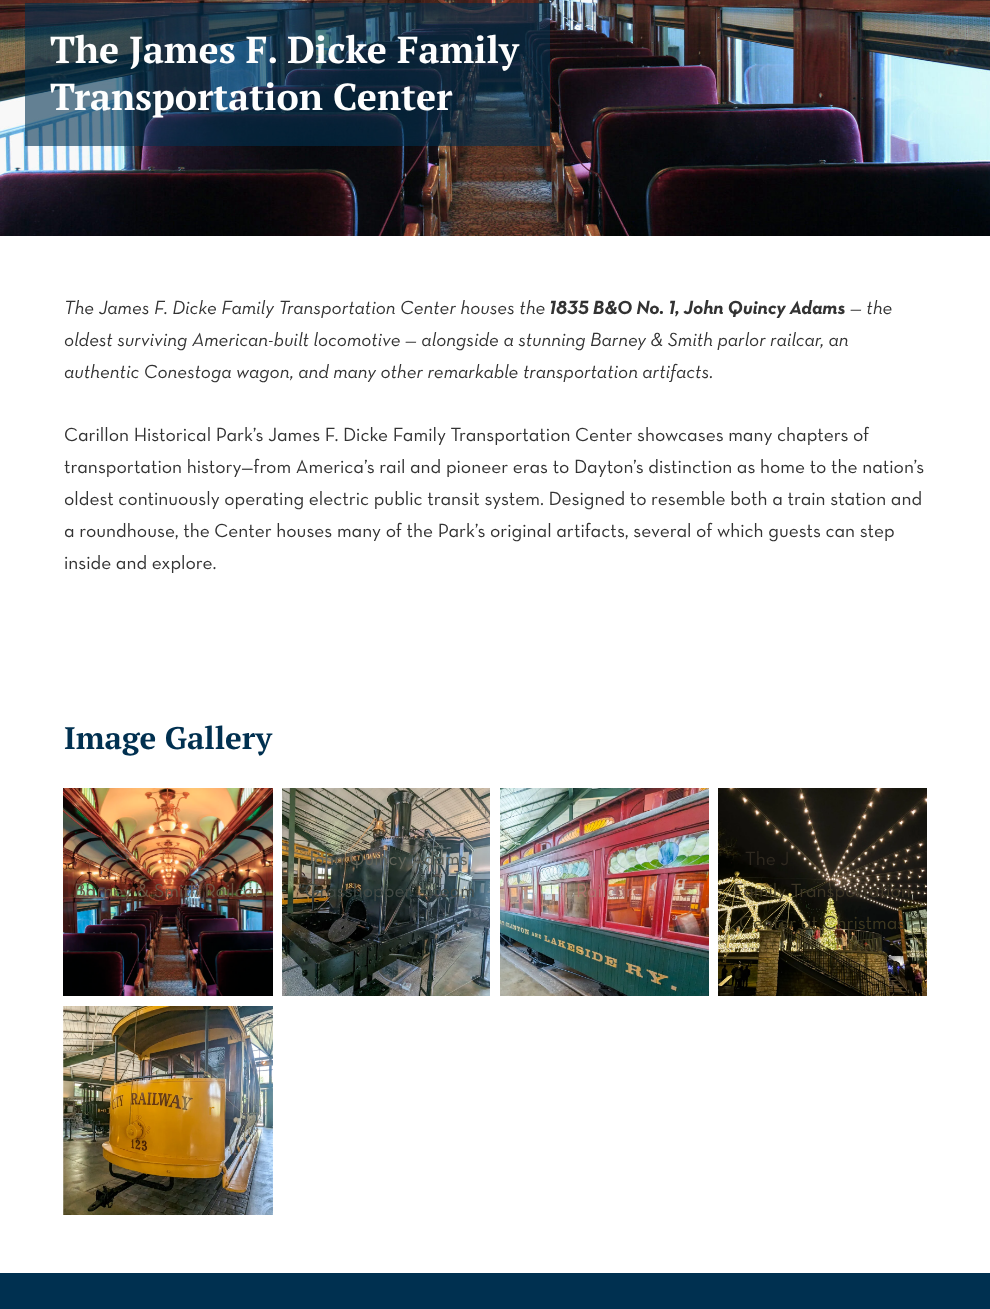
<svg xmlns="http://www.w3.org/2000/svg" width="990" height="1309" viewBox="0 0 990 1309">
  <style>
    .t1 { font: bold 37.5px PT Serif; fill: #fefefe; }
    .t2 { font: italic 19.4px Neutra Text; fill: #333; }
    .t3 { font: italic bold 19.4px Neutra Text; fill: #333; }
    .t4 { font: 19.4px Neutra Text; fill: #333; }
    .t5 { font: bold 31.25px PT Serif; fill: #003050; }
    .t6 { font: 19.4px Neutra Text; fill: #6c5644; }
    .t7 { font: 19.4px Neutra Text; fill: #62645a; }
    .t8 { font: 19.4px Neutra Text; fill: #434a46; }
    .t9 { font: 19.4px Neutra Text; fill: #b0736e; }
    .t10 { font: 19.4px Neutra Text; fill: #2f2920; }
    .t11 { font: 19.4px Neutra Text; fill: #3e3727; }
    .t12 { font: 19.4px Neutra Text; fill: #3e3821; }
    .t13 { font: 19.4px Neutra Text; fill: #c88917; }
  </style>
  <rect width="100%" height="100%" fill="#fff"/>
  <image x="0" y="0" width="990" height="236" href="images/1.png"/>
  <rect x="25" y="3" width="525" height="143" fill="#00305099"/>
  <text x="50" y="63" class="t1">The James F. Dicke Family</text>
  <text x="50" y="110" class="t1">Transportation Center</text>
  <text x="64" y="314" class="t2">The James F. Dicke Family Transportation Center houses the</text>
  <text x="549" y="314" class="t3">1835 B&amp;O No. 1, John Quincy Adams</text>
  <text x="850" y="314" class="t2">— the</text>
  <text x="64" y="346" class="t2">oldest surviving American-built locomotive — alongside a stunning Barney &amp; Smith parlor railcar, an</text>
  <text x="64" y="378" class="t2">authentic Conestoga wagon, and many other remarkable transportation artifacts.</text>
  <text x="64" y="441" class="t4">Carillon Historical Park’s James F. Dicke Family Transportation Center showcases many chapters of</text>
  <text x="64" y="473" class="t4">transportation history—from America’s rail and pioneer eras to Dayton’s distinction as home to the nation’s</text>
  <text x="64" y="505" class="t4">oldest continuously operating electric public transit system. Designed to resemble both a train station and</text>
  <text x="64" y="537" class="t4">a roundhouse, the Center houses many of the Park’s original artifacts, several of which guests can step</text>
  <text x="64" y="569" class="t4">inside and explore.</text>
  <text x="64" y="749" class="t5">Image Gallery</text>
  <image x="63" y="788" width="210" height="208" href="images/2.png"/>
  <text x="74" y="897" class="t6">Barney &amp; Smith Railcar</text>
  <image x="282" y="788" width="208" height="208" href="images/3.png"/>
  <text x="305" y="865" class="t7">John Quincy Adams</text>
  <text x="298" y="897" class="t8">“Grasshopper” Steam</text>
  <image x="500" y="788" width="209" height="208" href="images/4.png"/>
  <text x="576" y="897" class="t9">Railcar</text>
  <image x="718" y="788" width="209" height="208" href="images/5.png"/>
  <text x="745" y="865" class="t10">The J</text>
  <text x="733" y="897" class="t11">Family Transportation</text>
  <text x="739" y="929" class="t12">Center at Christmas</text>
  <image x="63" y="1006" width="210" height="209" href="images/6.png"/>
  <text x="208" y="1115" class="t13">r</text>
  <rect x="0" y="1273" width="990" height="36" fill="#003050"/>
</svg>
